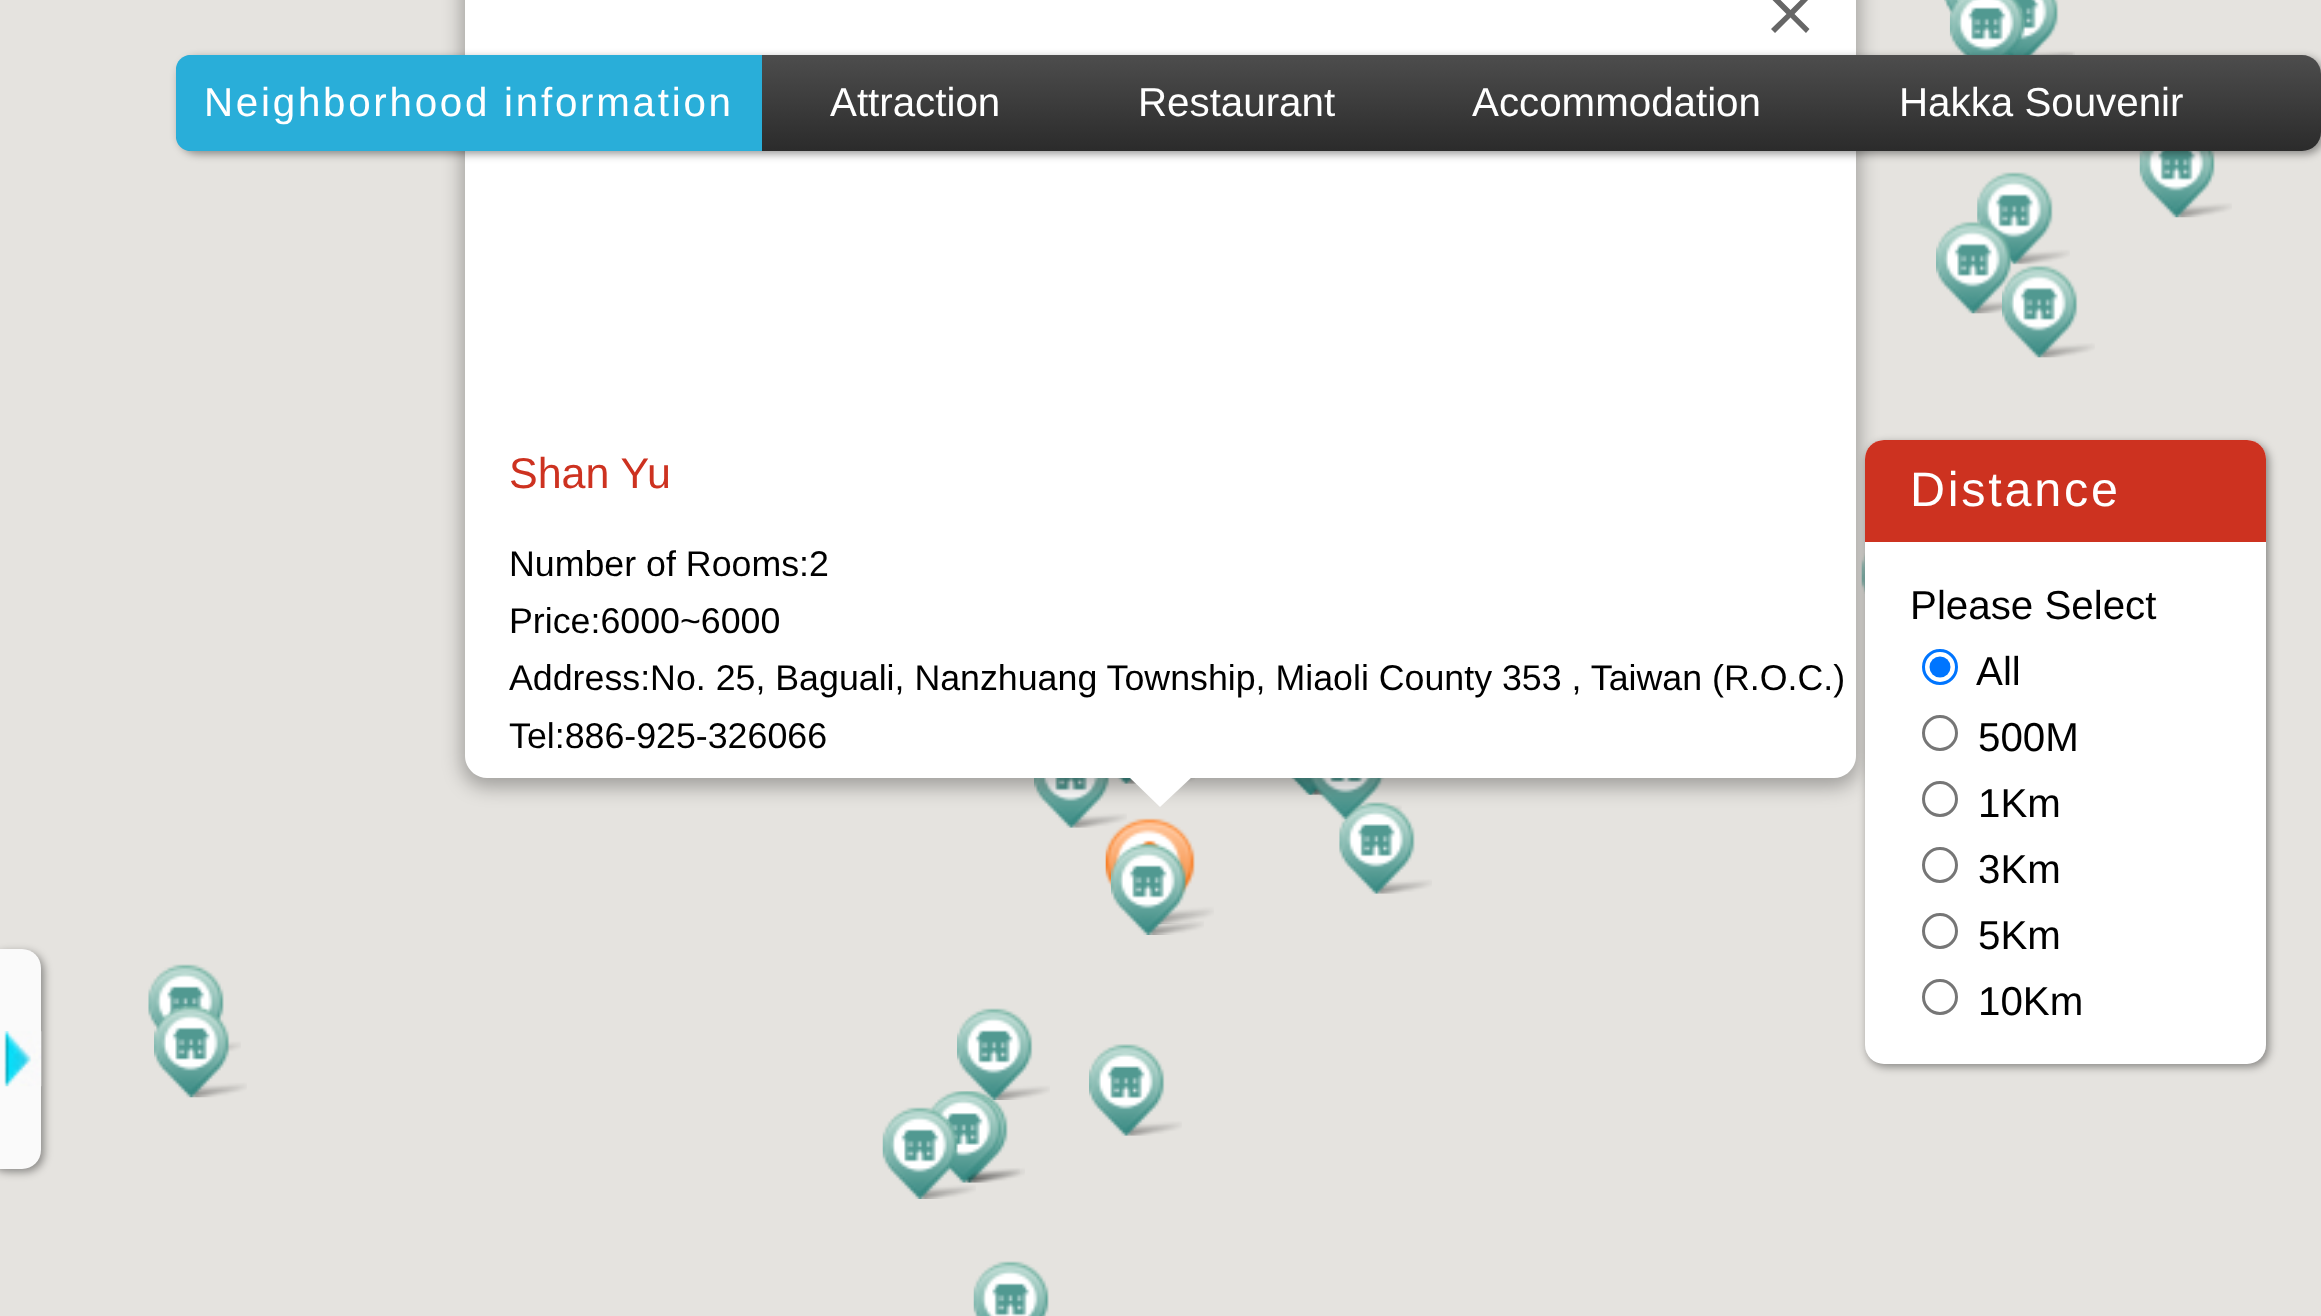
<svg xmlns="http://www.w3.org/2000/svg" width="2321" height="1316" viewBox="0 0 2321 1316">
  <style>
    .t1 { font: 40.3px Liberation Sans; letter-spacing: 2.75px; fill: #fff; }
    .t2 { font: 40.3px Liberation Sans; fill: #fff; }
    .t3 { font: 48.5px Liberation Sans; letter-spacing: 2.75px; fill: #fff; }
    .t4 { font: 40.3px Liberation Sans; fill: #000; }
    .t5 { font: 43px Liberation Sans; fill: #cd3220; }
    .t6 { font: 35.75px Liberation Sans; fill: #000; }
  </style>
  <defs>
    <linearGradient id="g1" gradientUnits="userSpaceOnUse" x1="1249" y1="55" x2="1249" y2="151"><stop offset="0" stop-color="#4d4d4d"/><stop offset="1" stop-color="#2b2b2b"/></linearGradient>
    <linearGradient id="g2" gradientUnits="userSpaceOnUse" x1="1214" y1="55" x2="1214" y2="151"><stop offset="0" stop-color="#4d4d4d"/><stop offset="1" stop-color="#2b2b2b"/></linearGradient>
  </defs>
  <rect width="100%" height="100%" fill="#e5e3df"/>
  <image x="1944" y="0" width="11" height="16" href="images/2.png"/>
  <image x="1944" y="0" width="18" height="16" href="images/3.png"/>
  <image x="2004" y="0" width="69" height="55" href="images/5.png"/>
  <image x="2005" y="0" width="70" height="55" href="images/6.png"/>
  <image x="1949" y="0" width="76" height="55" href="images/4.png"/>
  <image x="2139" y="151" width="93" height="67" href="images/9.png"/>
  <image x="1861" y="553" width="4" height="41" href="images/11.png"/>
  <image x="1117" y="778" width="20" height="6" href="images/13.png"/>
  <image x="1034" y="778" width="93" height="50" href="images/12.png"/>
  <image x="1131" y="778" width="64" height="9" href="images/14.png"/>
  <image x="1291" y="778" width="36" height="17" href="images/15.png"/>
  <image x="1291" y="778" width="36" height="17" href="images/16.png"/>
  <image x="1309" y="778" width="93" height="42" href="images/17.png"/>
  <image x="1339" y="802" width="93" height="92" href="images/19.png"/>
  <rect x="462" y="-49" width="1397" height="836" rx="25" fill="#0000004d" filter="blur(9.5px)"/>
  <path d="M465 0H1856V756C1856 768 1846 778 1834 778H487C475 778 465 768 465 756Z" fill="#fff"/>
  <rect x="179" y="58" width="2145" height="96" rx="19" fill="#00000066" filter="blur(4px)"/>
  <rect x="176" y="55" width="2145" height="96" rx="19" fill="url(#g1)"/>
  <rect x="176" y="55" width="2076" height="96" rx="17" fill="url(#g2)"/>
  <path d="M190 55H762V151H190C182.5 151 176 144.5 176 137V69C176 61.5 182.5 55 190 55Z" fill="#29aed9"/>
  <text x="204" y="116" class="t1">Neighborhood information</text>
  <text x="830" y="116" class="t2">Attraction</text>
  <text x="1138" y="116" class="t2">Restaurant</text>
  <text x="1472" y="116" class="t2">Accommodation</text>
  <text x="1899" y="116" class="t2">Hakka Souvenir</text>
  <rect x="1867" y="443" width="402" height="624" rx="19" fill="#00000066" filter="blur(4px)"/>
  <rect x="1865" y="440" width="401" height="624" rx="19" fill="#fff"/>
  <path d="M1884 440H2247C2257.5 440 2266 448.5 2266 459V542H1865V459C1865 448.5 1873.5 440 1884 440Z" fill="#cd3220"/>
  <text x="1910" y="506" class="t3">Distance</text>
  <text x="1910" y="619" class="t4">Please Select</text>
  <circle cx="1940" cy="667" r="16.5" fill="none" stroke="#0075ff" stroke-width="3"/>
  <circle cx="1940" cy="667" r="10.5" fill="#0075ff"/>
  <text x="1976" y="685" class="t4">All</text>
  <circle cx="1940" cy="733" r="16.5" fill="none" stroke="#767676" stroke-width="3"/>
  <text x="1978" y="751" class="t4">500M</text>
  <circle cx="1940" cy="799" r="16.5" fill="none" stroke="#767676" stroke-width="3"/>
  <text x="1978" y="817" class="t4">1Km</text>
  <circle cx="1940" cy="865" r="16.5" fill="none" stroke="#767676" stroke-width="3"/>
  <text x="1978" y="883" class="t4">3Km</text>
  <circle cx="1940" cy="931" r="16.5" fill="none" stroke="#767676" stroke-width="3"/>
  <text x="1978" y="949" class="t4">5Km</text>
  <circle cx="1940" cy="997" r="16.5" fill="none" stroke="#767676" stroke-width="3"/>
  <text x="1978" y="1015" class="t4">10Km</text>
  <rect x="-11" y="952" width="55" height="220" rx="19" fill="#00000066" filter="blur(4px)"/>
  <path d="M-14 949H22C32.5 949 41 957.5 41 968V1150C41 1160.5 32.5 1169 22 1169H-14Z" fill="#fafafa"/>
  <image x="4" y="1031" width="38" height="56" href="images/1.png"/>
  <image x="1977" y="172" width="93" height="93" href="images/8.png"/>
  <image x="1936" y="221" width="76" height="93" href="images/7.png"/>
  <image x="2002" y="265" width="93" height="93" href="images/10.png"/>
  <image x="1105" y="818" width="109" height="106" href="images/18.png"/>
  <image x="1111" y="843" width="93" height="92" href="images/20.png"/>
  <image x="148" y="964" width="93" height="88" href="images/21.png"/>
  <image x="154" y="1005" width="93" height="93" href="images/22.png"/>
  <image x="957" y="1008" width="93" height="92" href="images/23.png"/>
  <image x="1089" y="1044" width="93" height="92" href="images/24.png"/>
  <image x="932" y="1091" width="93" height="92" href="images/27.png"/>
  <image x="928" y="1091" width="92" height="92" href="images/25.png"/>
  <image x="882" y="1107" width="94" height="92" href="images/26.png"/>
  <image x="973" y="1261" width="76" height="55" href="images/28.png"/>
  <path d="M1809.5-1.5L1806-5.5L1790.5 10L1775-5.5L1771-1.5L1786.5 14L1771 29L1775 33L1790.5 17.5L1806 33L1809.5 29L1794.5 14Z" fill="#666"/>
  <text x="509" y="488" class="t5">Shan Yu</text>
  <text x="509" y="576" class="t6">Number of Rooms:2</text>
  <text x="509" y="633" class="t6">Price:6000~6000</text>
  <text x="509" y="690" class="t6">Address:No. 25, Baguali, Nanzhuang Township, Miaoli County 353 , Taiwan (R.O.C.)</text>
  <text x="509" y="748" class="t6">Tel:886-925-326066</text>
  <path d="M1193 776H1128L1160 807Z" fill="#fff"/>
</svg>
